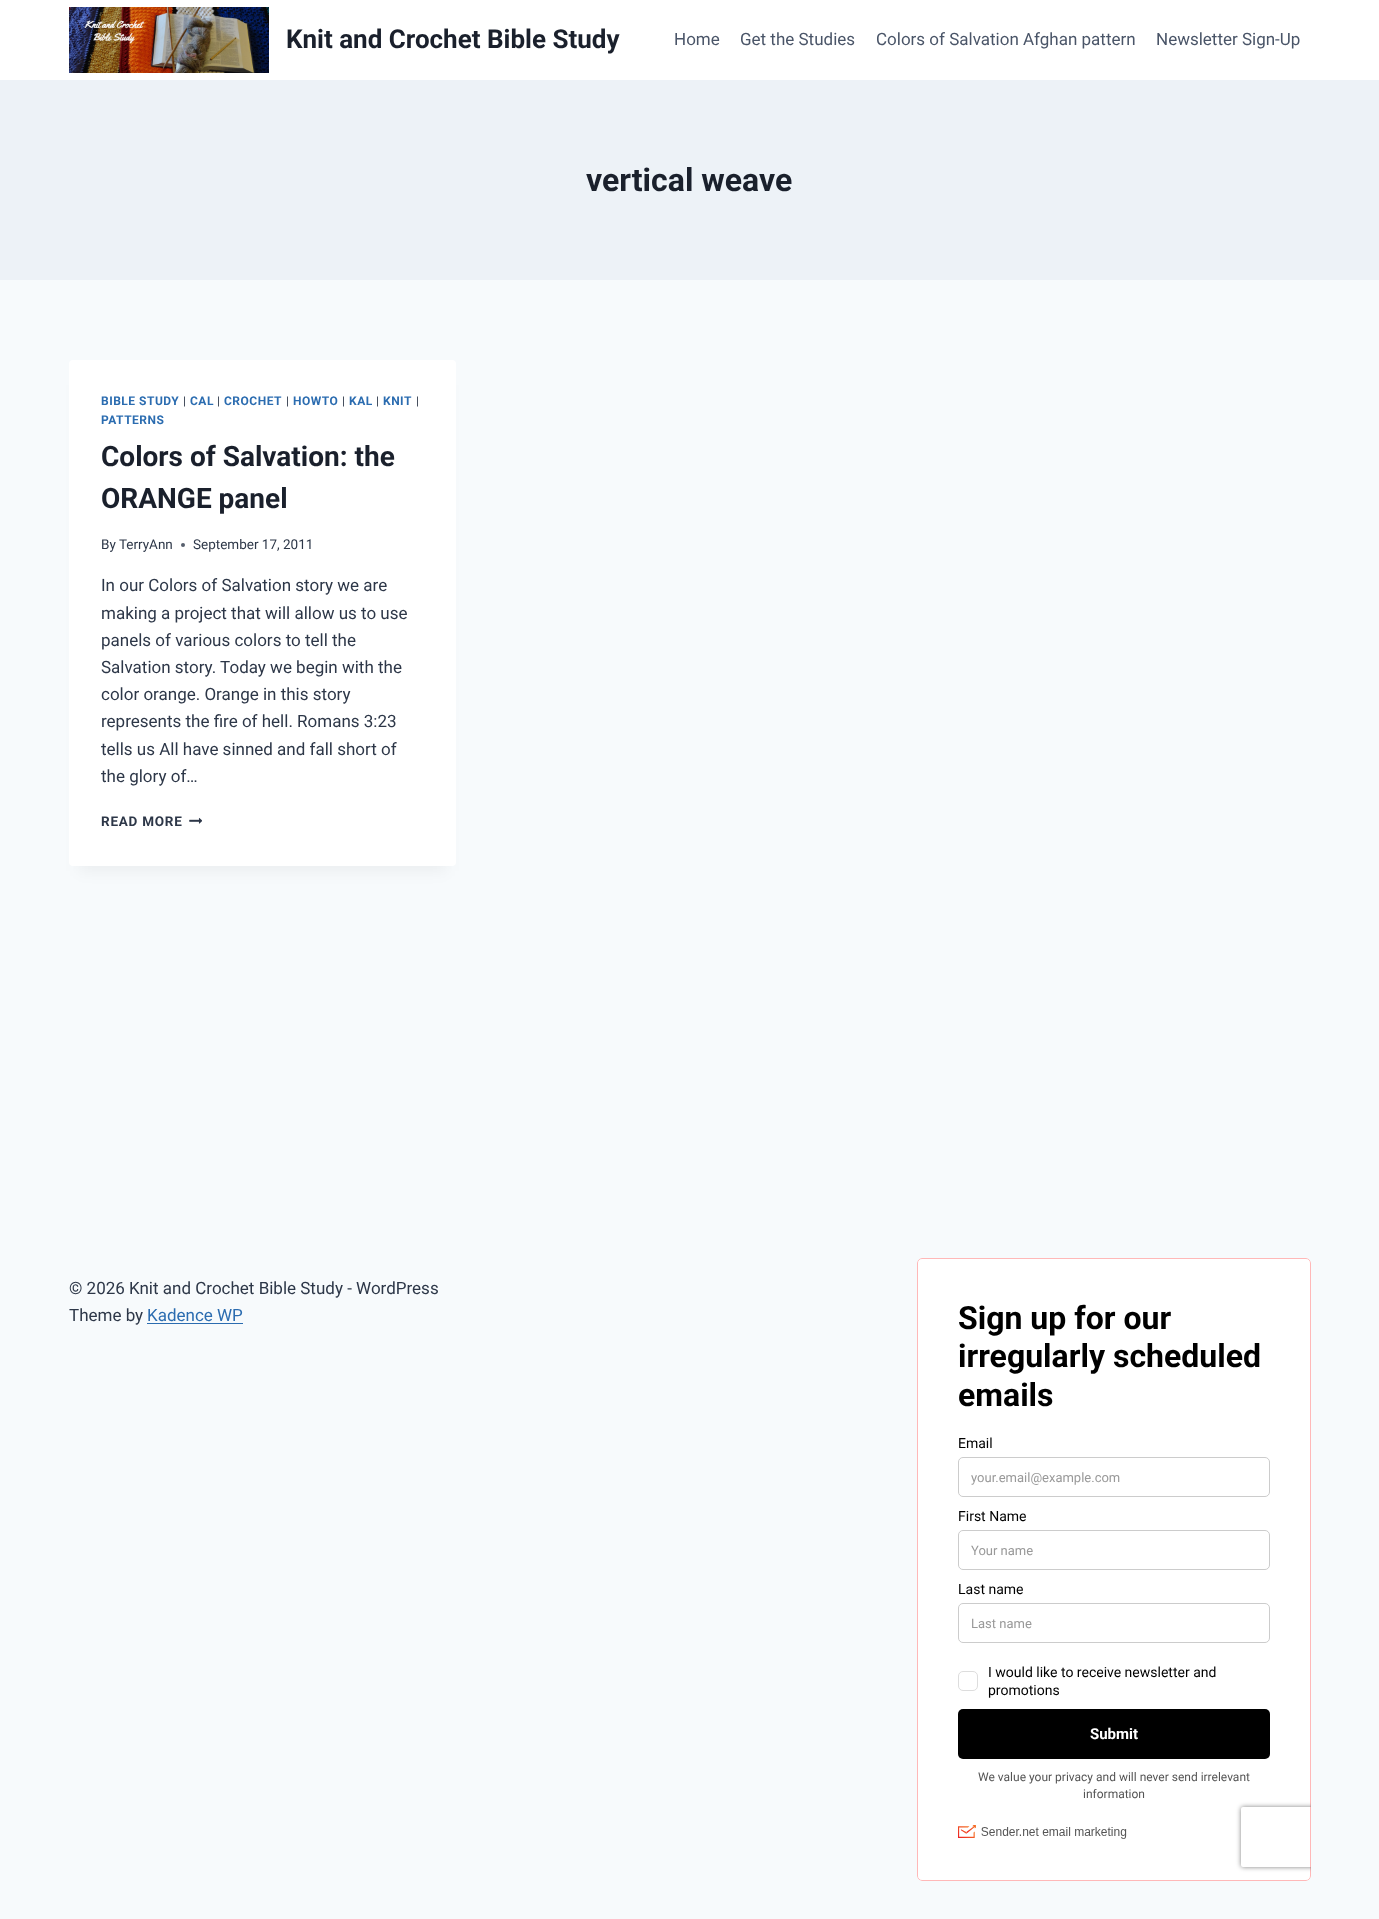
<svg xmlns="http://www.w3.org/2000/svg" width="1379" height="1919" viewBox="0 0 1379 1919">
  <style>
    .t1 { font: bold 26px Roboto; fill: #1a202c; }
    .t2 { font: 17px Roboto; fill: #4a5568; }
    .t3 { font: bold 32px Roboto; fill: #1a202c; }
    .t4 { font: bold 12px Roboto; letter-spacing: 0.5px; fill: #2b6cb0; }
    .t5 { font: 12px Roboto; letter-spacing: 0.5px; fill: #2d3748; }
    .t6 { font: bold 28px Roboto; fill: #1a202c; }
    .t7 { font: 13.5px Roboto; fill: #2d3748; }
    .t8 { font: 17px Roboto; fill: #2d3748; }
    .t9 { font: bold 13.5px Roboto; letter-spacing: 0.75px; fill: #2d3748; }
    .t10 { font: 17px Roboto; fill: #2b6cb0; }
  </style>
  <rect width="100%" height="100%" fill="#f7fafc"/>
  <rect x="0" y="0" width="1379" height="80" fill="#fff"/>
  <image x="69" y="7" width="200" height="66" href="images/1.png"/>
  <text x="286" y="48" class="t1">Knit and Crochet Bible Study</text>
  <text x="674" y="45" class="t2">Home</text>
  <text x="740" y="45" class="t2">Get the Studies</text>
  <text x="876" y="45" class="t2">Colors of Salvation Afghan pattern</text>
  <text x="1156" y="45" class="t2">Newsletter Sign-Up</text>
  <rect x="0" y="80" width="1379" height="200" fill="#edf2f7"/>
  <text x="586" y="191" class="t3">vertical weave</text>
  <rect x="79" y="385" width="367" height="486" fill="#0000000d" filter="blur(7.5px)"/>
  <rect x="69" y="360" width="387" height="506" rx="4" fill="#fff"/>
  <text x="101" y="405" class="t4">BIBLE STUDY</text>
  <text x="183" y="405" class="t5">|</text>
  <text x="190" y="405" class="t4">CAL</text>
  <text x="217" y="405" class="t5">|</text>
  <text x="224" y="405" class="t4">CROCHET</text>
  <text x="286" y="405" class="t5">|</text>
  <text x="293" y="405" class="t4">HOWTO</text>
  <text x="342" y="405" class="t5">|</text>
  <text x="349" y="405" class="t4">KAL</text>
  <text x="376" y="405" class="t5">|</text>
  <text x="383" y="405" class="t4">KNIT</text>
  <text x="416" y="405" class="t5">|</text>
  <text x="101" y="424" class="t4">PATTERNS</text>
  <text x="101" y="466" class="t6">Colors of Salvation: the</text>
  <text x="101" y="508" class="t6">ORANGE panel</text>
  <text x="101" y="549" class="t7">By TerryAnn</text>
  <circle cx="183" cy="545" r="2" fill="#575f6d"/>
  <text x="193" y="549" class="t7">September 17, 2011</text>
  <text x="101" y="591" class="t8">In our Colors of Salvation story we are</text>
  <text x="101" y="619" class="t8">making a project that will allow us to use</text>
  <text x="101" y="646" class="t8">panels of various colors to tell the</text>
  <text x="101" y="673" class="t8">Salvation story. Today we begin with the</text>
  <text x="101" y="700" class="t8">color orange. Orange in this story</text>
  <text x="101" y="727" class="t8">represents the fire of hell. Romans 3:23</text>
  <text x="101" y="755" class="t8">tells us All have sinned and fall short of</text>
  <text x="101" y="782" class="t8">the glory of…</text>
  <text x="101" y="826" class="t9">READ MORE</text>
  <image x="189" y="817" width="13" height="7" href="images/2.png"/>
  <text x="69" y="1294" class="t8">© 2026 Knit and Crochet Bible Study - WordPress</text>
  <text x="69" y="1321" class="t8">Theme by</text>
  <text x="147" y="1321" class="t10">Kadence WP</text>
  <rect x="147" y="1323" width="96" height="1" fill="#2b6cb0"/>
  <image x="917" y="1258" width="394" height="623" href="images/3.png"/>
</svg>
